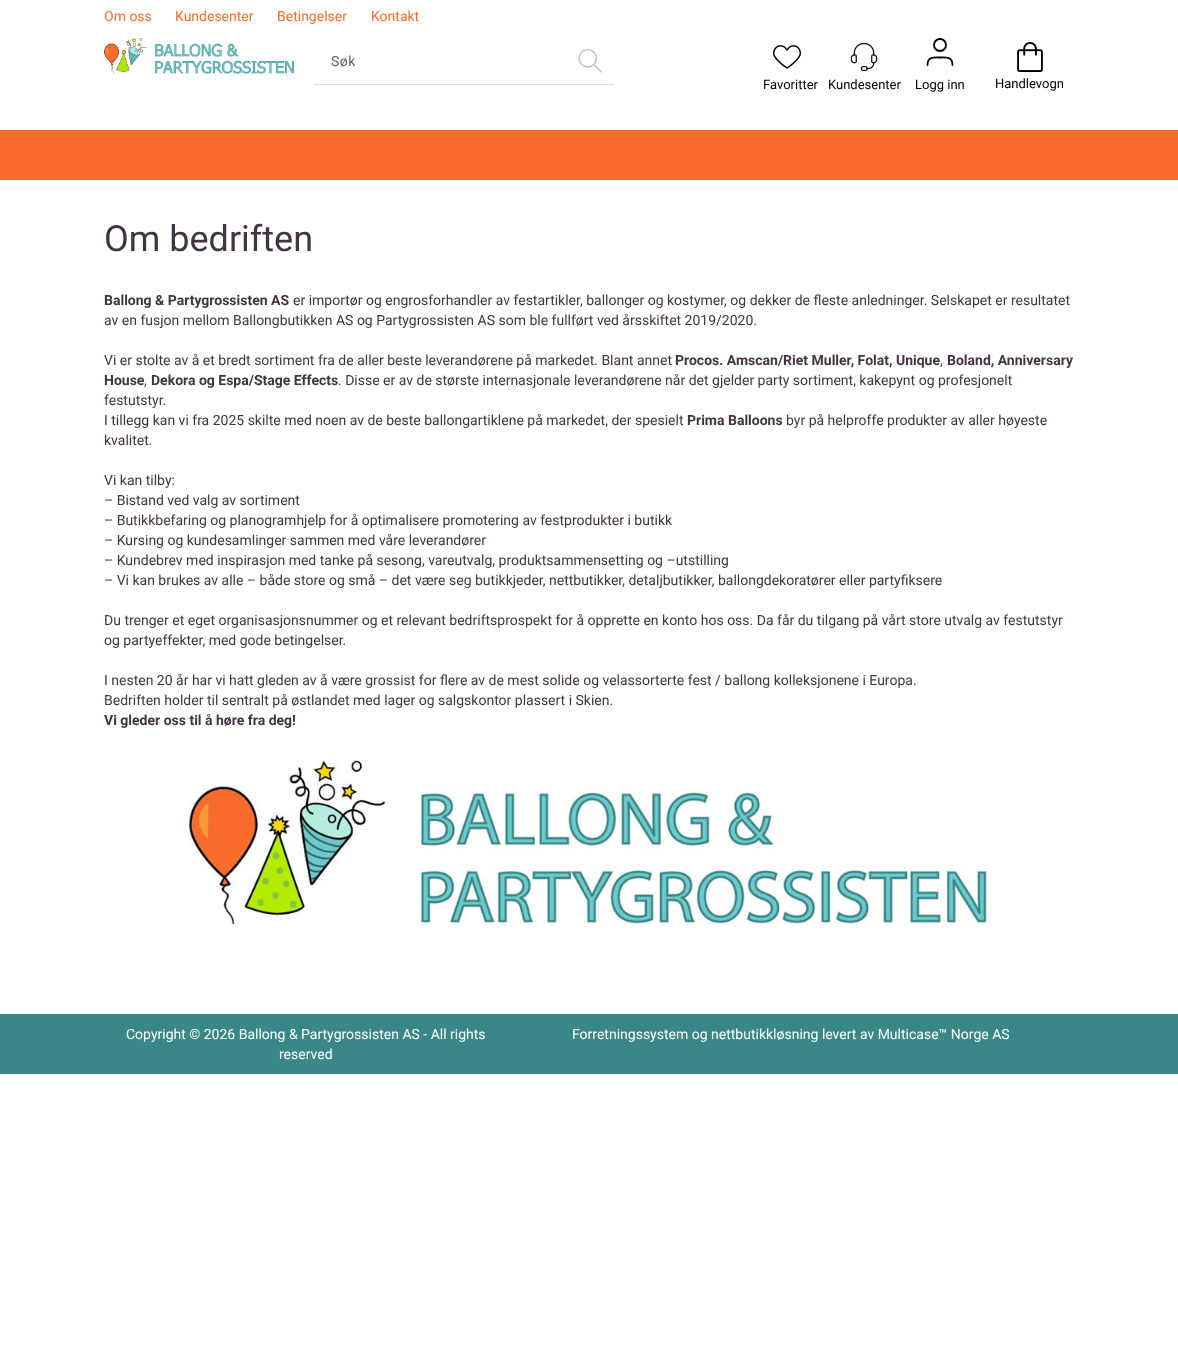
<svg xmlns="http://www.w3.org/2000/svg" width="1178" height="1372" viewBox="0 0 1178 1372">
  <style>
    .t1 { font: 14px Roboto; fill: #f96c2c; }
    .t2 { font: 14px Roboto; letter-spacing: 0.5px; fill: #636363; }
    .t3 { font: 13px Roboto; fill: #000; }
    .t4 { font: 36px Roboto; fill: #433444; }
    .t5 { font: bold 14px Roboto; fill: #433444; }
    .t6 { font: 14px Roboto; fill: #433444; }
    .t7 { font: 14px Roboto; fill: #fff; }
  </style>
  <rect width="100%" height="100%" fill="#fff"/>
  <text x="104" y="21" class="t1">Om oss</text>
  <text x="175" y="21" class="t1">Kundesenter</text>
  <text x="277" y="21" class="t1">Betingelser</text>
  <text x="371" y="21" class="t1">Kontakt</text>
  <image x="104" y="38" width="190" height="36" href="images/1.png"/>
  <rect x="314" y="84" width="300" height="1" fill="#e2e2e2"/>
  <text x="331" y="66" class="t2">Søk</text>
  <image x="578" y="49" width="24" height="24" href="images/2.png"/>
  <image x="773" y="45" width="28" height="24" href="images/3.png"/>
  <text x="763" y="89" class="t3">Favoritter</text>
  <image x="1017" y="42" width="26" height="30" href="images/4.png"/>
  <text x="995" y="88" class="t3">Handlevogn</text>
  <image x="850" y="43" width="28" height="28" href="images/5.png"/>
  <text x="828" y="89" class="t3">Kundesenter</text>
  <path d="M952.5 65C952.5 56.5 946.5 57.5 940 57.5C933.5 57.5 927.5 56.5 927.5 65" fill="none" stroke="#000" stroke-width="1.8" stroke-linecap="round" stroke-linejoin="round"/>
  <circle cx="940" cy="45" r="6" fill="none" stroke="#000" stroke-width="1.8"/>
  <text x="915" y="89" class="t3">Logg inn</text>
  <rect x="0" y="130" width="1178" height="50" fill="#f96c2c"/>
  <text x="104" y="251" class="t4">Om bedriften</text>
  <text x="104" y="305" class="t5">Ballong &amp; Partygrossisten AS</text>
  <text x="293" y="305" class="t6">er importør og engrosforhandler av festartikler, ballonger og kostymer, og dekker de fleste anledninger. Selskapet er resultatet</text>
  <text x="104" y="325" class="t6">av en fusjon mellom Ballongbutikken AS og Partygrossisten AS som ble fullført ved årsskiftet 2019/2020.</text>
  <text x="104" y="365" class="t6">Vi er stolte av å et bredt sortiment fra de aller beste leverandørene på markedet. Blant annet</text>
  <text x="675" y="365" class="t5">Procos. Amscan/Riet Muller, Folat, Unique</text>
  <text x="940" y="365" class="t6">,</text>
  <text x="947" y="365" class="t5">Boland, Anniversary</text>
  <text x="104" y="385" class="t5">House</text>
  <text x="144" y="385" class="t6">,</text>
  <text x="151" y="385" class="t5">Dekora og Espa/Stage Effects</text>
  <text x="338" y="385" class="t6">. Disse er av de største internasjonale leverandørene når det gjelder party sortiment, kakepynt og profesjonelt</text>
  <text x="104" y="405" class="t6">festutstyr.</text>
  <text x="104" y="425" class="t6">I tillegg kan vi fra 2025 skilte med noen av de beste ballongartiklene på markedet, der spesielt</text>
  <text x="687" y="425" class="t5">Prima Balloons</text>
  <text x="786" y="425" class="t6">byr på helproffe produkter av aller høyeste</text>
  <text x="104" y="445" class="t6">kvalitet.</text>
  <text x="104" y="485" class="t6">Vi kan tilby:</text>
  <text x="104" y="505" class="t6">– Bistand ved valg av sortiment</text>
  <text x="104" y="525" class="t6">– Butikkbefaring og planogramhjelp for å optimalisere promotering av festprodukter i butikk</text>
  <text x="104" y="545" class="t6">– Kursing og kundesamlinger sammen med våre leverandører</text>
  <text x="104" y="565" class="t6">– Kundebrev med inspirasjon med tanke på sesong, vareutvalg, produktsammensetting og –utstilling</text>
  <text x="104" y="585" class="t6">– Vi kan brukes av alle – både store og små – det være seg butikkjeder, nettbutikker, detaljbutikker, ballongdekoratører eller partyfiksere</text>
  <text x="104" y="625" class="t6">Du trenger et eget organisasjonsnummer og et relevant bedriftsprospekt for å opprette en konto hos oss. Da får du tilgang på vårt store utvalg av festutstyr</text>
  <text x="104" y="645" class="t6">og partyeffekter, med gode betingelser.</text>
  <text x="104" y="685" class="t6">I nesten 20 år har vi hatt gleden av å være grossist for flere av de mest solide og velassorterte fest / ballong kolleksjonene i Europa.</text>
  <text x="104" y="705" class="t6">Bedriften holder til sentralt på østlandet med lager og salgskontor plassert i Skien.</text>
  <text x="104" y="725" class="t5">Vi gleder oss til å høre fra deg!</text>
  <image x="189" y="760" width="800" height="164" href="images/6.png"/>
  <rect x="0" y="1014" width="1178" height="60" fill="#398787"/>
  <text x="126" y="1039" class="t7">Copyright © 2026 Ballong &amp; Partygrossisten AS - All rights</text>
  <text x="279" y="1059" class="t7">reserved</text>
  <text x="572" y="1039" class="t7">Forretningssystem og nettbutikkløsning levert av Multicase™ Norge AS</text>
</svg>
